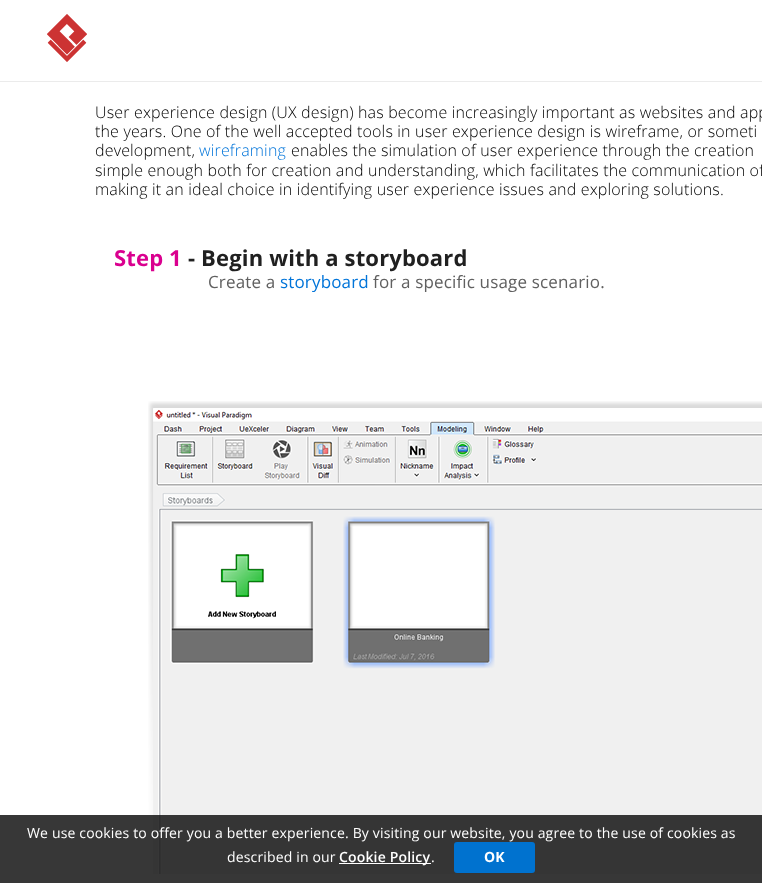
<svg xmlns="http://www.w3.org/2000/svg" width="762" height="883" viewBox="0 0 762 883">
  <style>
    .t1 { font: 300 16px Open Sans; letter-spacing: 0.16px; fill: #000; }
    .t2 { font: 300 16px Open Sans; letter-spacing: 0.16px; fill: #0074d9; }
    .t3 { font: bold 22px Open Sans; letter-spacing: 0.16px; fill: #da008f; }
    .t4 { font: bold 22px Open Sans; letter-spacing: 0.16px; fill: #202020; }
    .t5 { font: 17px Open Sans; letter-spacing: 0.16px; fill: #606060; }
    .t6 { font: 17px Open Sans; letter-spacing: 0.16px; fill: #0074d9; }
    .t7 { font: 14px Open Sans; letter-spacing: 0.16px; fill: #fff; }
    .t8 { font: 600 14px Open Sans; letter-spacing: 0.16px; fill: #fff; }
    .t9 { font: bold 14px Open Sans; letter-spacing: 0.16px; fill: #fff; }
  </style>
  <rect width="100%" height="100%" fill="#fff"/>
  <rect x="0" y="81" width="762" height="1" fill="#ebebeb"/>
  <image x="47" y="14" width="40" height="48" href="images/1.png"/>
  <text x="95" y="118" class="t1">User experience design (UX design) has become increasingly important as websites and app</text>
  <text x="95" y="137" class="t1">the years. One of the well accepted tools in user experience design is wireframe, or someti</text>
  <text x="95" y="156" class="t1">development,</text>
  <text x="199" y="156" class="t2">wireframing</text>
  <text x="291" y="156" class="t1">enables the simulation of user experience through the creation</text>
  <text x="95" y="176" class="t1">simple enough both for creation and understanding, which facilitates the communication of</text>
  <text x="95" y="195" class="t1">making it an ideal choice in identifying user experience issues and exploring solutions.</text>
  <text x="114" y="266" class="t3">Step 1</text>
  <text x="188" y="266" class="t4">- Begin with a storyboard</text>
  <text x="208" y="288" class="t5">Create a</text>
  <text x="280" y="288" class="t6">storyboard</text>
  <text x="373" y="288" class="t5">for a specific usage scenario.</text>
  <image x="148" y="401" width="614" height="473" href="images/2.png"/>
  <rect x="0" y="815" width="762" height="68" fill="#141414d9"/>
  <text x="27" y="838" class="t7">We use cookies to offer you a better experience. By visiting our website, you agree to the use of cookies as</text>
  <text x="227" y="862" class="t7">described in our</text>
  <rect x="339" y="863" width="92" height="1" fill="#fff"/>
  <text x="339" y="862" class="t8">Cookie Policy</text>
  <text x="431" y="862" class="t7">.</text>
  <rect x="454" y="842" width="81" height="31" rx="3" fill="#0072cf"/>
  <text x="484" y="862" class="t9">OK</text>
</svg>
